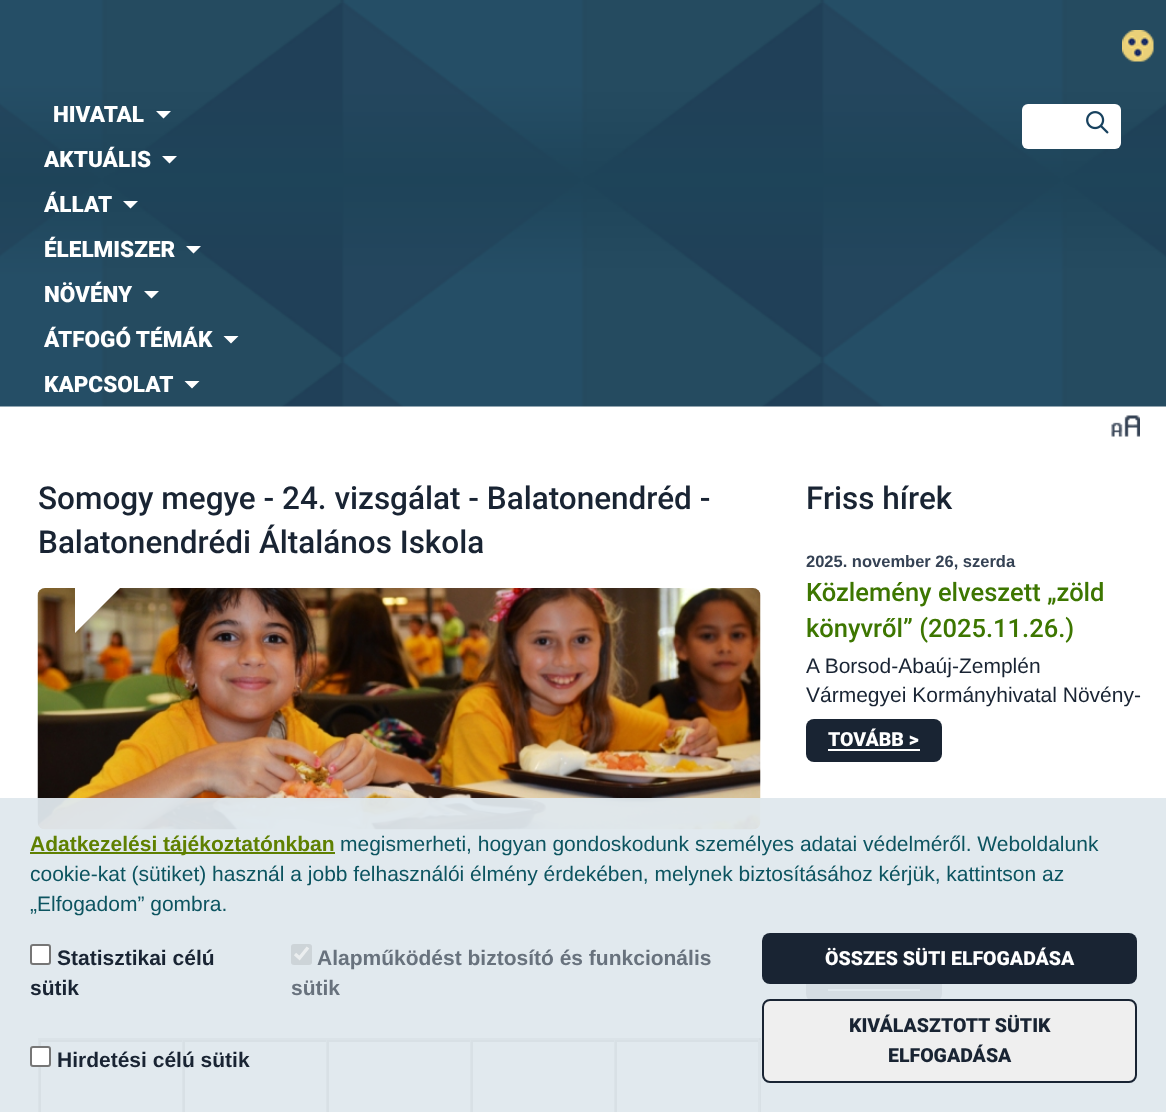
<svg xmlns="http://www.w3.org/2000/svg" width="1166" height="1112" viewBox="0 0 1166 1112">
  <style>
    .t1 { font: 900 22.5px Roboto; fill: #fff; }
    .t2 { font: 500 31.5px Roboto; fill: #192433; }
    .t3 { font: bold 16.5px Liberation Sans; fill: #354254; }
    .t4 { font: 500 25.5px Roboto; fill: #3d7600; }
    .t5 { font: 21px Liberation Sans; fill: #192433; }
    .t6 { font: 900 19.5px Roboto; fill: #fff; }
    .t7 { font: bold 21px Liberation Sans; fill: #5f8001; }
    .t8 { font: 21px Liberation Sans; fill: #0c5460; }
    .t9 { font: bold 21px Liberation Sans; fill: #192433; }
    .t10 { font: bold 21px Liberation Sans; fill: #68727d; }
    .t11 { font: 900 19.5px Roboto; fill: #192433; }
  </style>
  <rect width="100%" height="100%" fill="#fff"/>
  <image x="0" y="0" width="1166" height="407" href="images/1.png"/>
  <image x="1122" y="30" width="32" height="32" href="images/2.png"/>
  <text x="53" y="122" class="t1">HIVATAL</text>
  <path d="M156 111H171L163.5 118.5ZM162 156H177L169.5 163.5Z" fill="#fff"/>
  <text x="44" y="167" class="t1">AKTUÁLIS</text>
  <text x="44" y="212" class="t1">ÁLLAT</text>
  <path d="M123 201H138L130.5 208.5Z" fill="#fff"/>
  <text x="44" y="257" class="t1">ÉLELMISZER</text>
  <path d="M186 246H201L193.5 253.5ZM144 291H159L151.5 298.5Z" fill="#fff"/>
  <text x="44" y="302" class="t1">NÖVÉNY</text>
  <text x="44" y="347" class="t1">ÁTFOGÓ TÉMÁK</text>
  <path d="M223.5 336H238.5L231 343.5ZM184.5 381H199.5L192 388.5Z" fill="#fff"/>
  <text x="44" y="392" class="t1">KAPCSOLAT</text>
  <rect x="1022" y="104" width="99" height="45" rx="6" fill="#fff"/>
  <image x="1086" y="111" width="23" height="23" href="images/3.png"/>
  <image x="1111" y="415" width="29" height="22" href="images/4.png"/>
  <text x="38" y="509" class="t2">Somogy megye - 24. vizsgálat - Balatonendréd -</text>
  <text x="38" y="553" class="t2">Balatonendrédi Általános Iskola</text>
  <image x="37" y="588" width="724" height="242" href="images/5.png"/>
  <path d="M75 588H120L75 633Z" fill="#fff"/>
  <rect x="38" y="1038" width="723" height="2" fill="#808080"/>
  <rect x="759" y="1038" width="2" height="74" fill="#555"/>
  <rect x="38" y="1038" width="2" height="74" fill="#808080"/>
  <rect x="39" y="1040" width="720" height="2" fill="#555"/>
  <rect x="182" y="1040" width="1" height="72" fill="#808080"/>
  <rect x="39" y="1040" width="2" height="72" fill="#555"/>
  <rect x="326" y="1040" width="1" height="72" fill="#808080"/>
  <rect x="183" y="1040" width="2" height="72" fill="#555"/>
  <rect x="470" y="1040" width="1" height="72" fill="#808080"/>
  <rect x="327" y="1040" width="2" height="72" fill="#555"/>
  <rect x="614" y="1040" width="1" height="72" fill="#808080"/>
  <rect x="471" y="1040" width="2" height="72" fill="#555"/>
  <rect x="758" y="1040" width="2" height="72" fill="#808080"/>
  <rect x="615" y="1040" width="2" height="72" fill="#555"/>
  <text x="806" y="509" class="t2">Friss hírek</text>
  <text x="806" y="567" class="t3">2025. november 26, szerda</text>
  <text x="806" y="601" class="t4">Közlemény elveszett „zöld</text>
  <text x="806" y="637" class="t4">könyvről” (2025.11.26.)</text>
  <text x="806" y="673" class="t5">A Borsod-Abaúj-Zemplén</text>
  <text x="806" y="702" class="t5">Vármegyei Kormányhivatal Növény-</text>
  <rect x="806" y="719" width="136" height="43" rx="8" fill="#192433"/>
  <text x="828" y="746" class="t6">TOVÁBB &gt;</text>
  <rect x="828" y="749" width="92" height="2" fill="#fff"/>
  <rect x="806" y="959" width="136" height="43" rx="8" fill="#192433"/>
  <rect x="828" y="989" width="92" height="2" fill="#fff"/>
  <rect x="0" y="798" width="1166" height="314" fill="#dfe8edf2"/>
  <rect x="30" y="852" width="305" height="2" fill="#5f8001"/>
  <text x="30" y="851" class="t7">Adatkezelési tájékoztatónkban</text>
  <text x="340" y="851" class="t8">megismerheti, hogyan gondoskodunk személyes adatai védelméről. Weboldalunk</text>
  <text x="30" y="881" class="t8">cookie-kat (sütiket) használ a jobb felhasználói élmény érdekében, melynek biztosításához kérjük, kattintson az</text>
  <text x="30" y="911" class="t8">„Elfogadom” gombra.</text>
  <rect x="31" y="945" width="19" height="19" rx="2" fill="#fff" stroke="#767676" stroke-width="2"/>
  <text x="57" y="965" class="t9">Statisztikai célú</text>
  <text x="30" y="995" class="t9">sütik</text>
  <rect x="31" y="1047" width="19" height="19" rx="2" fill="#fff" stroke="#767676" stroke-width="2"/>
  <text x="57" y="1067" class="t9">Hirdetési célú sütik</text>
  <rect x="291" y="944" width="21" height="21" rx="3" fill="#7676762e"/>
  <path d="M295 954L299.5 958L308 947.5" fill="none" stroke="#ffffff99" stroke-width="3.4"/>
  <text x="317" y="965" class="t10">Alapműködést biztosító és funkcionális</text>
  <text x="291" y="995" class="t10">sütik</text>
  <rect x="762" y="933" width="375" height="51" rx="8" fill="#192433"/>
  <text x="825" y="965" class="t6">ÖSSZES SÜTI ELFOGADÁSA</text>
  <rect x="763" y="1000" width="373" height="82" rx="7" fill="#efefef" stroke="#192433" stroke-width="2"/>
  <text x="849" y="1032" class="t11">KIVÁLASZTOTT SÜTIK</text>
  <text x="888" y="1062" class="t11">ELFOGADÁSA</text>
</svg>
